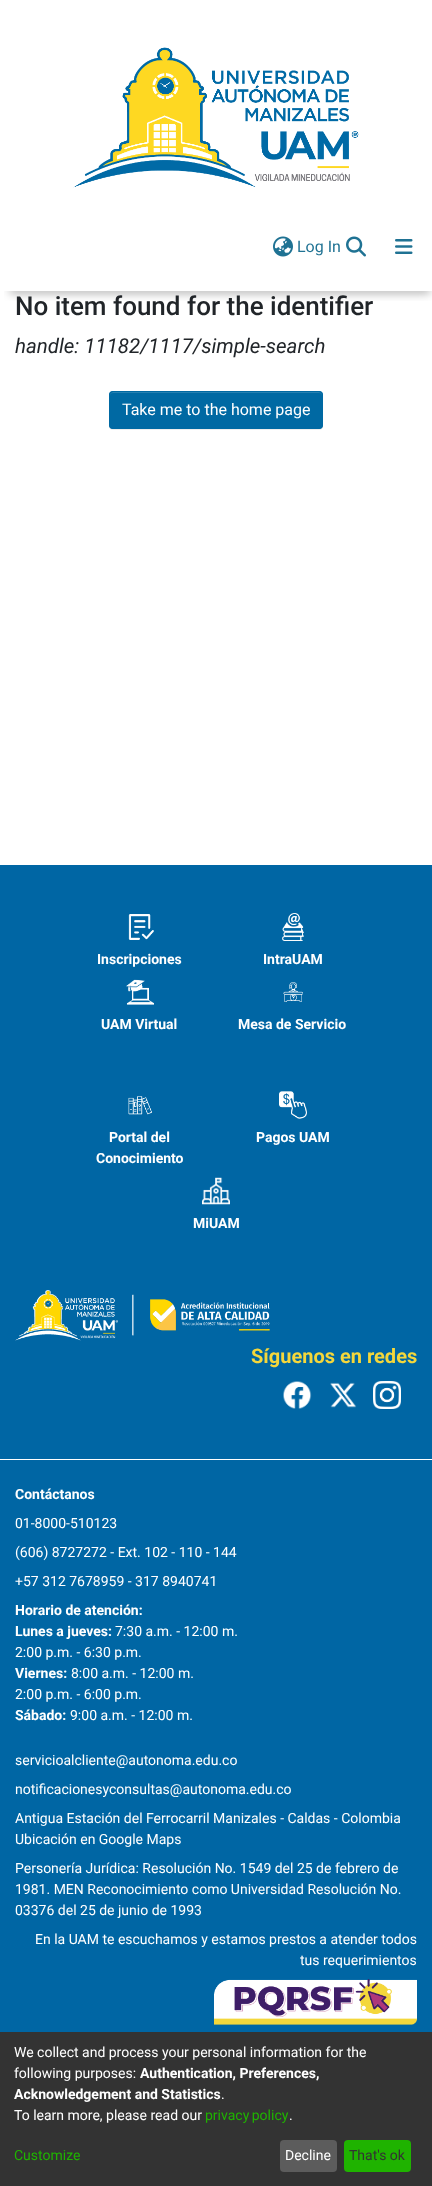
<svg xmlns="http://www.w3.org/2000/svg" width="432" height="2186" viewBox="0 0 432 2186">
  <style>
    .t1 { font: 16px Roboto; fill: #1f7293; }
    .t2 { font: 500 26px Roboto; fill: #212529; }
    .t3 { font: italic 20.5px Roboto; fill: #212529; }
    .t4 { font: 16px Roboto; fill: #fff; }
    .t5 { font: bold 14px Roboto; fill: #fff; }
    .t6 { font: bold 20px Roboto; fill: #f4d73b; }
    .t7 { font: 14px Roboto; fill: #fff; }
    .t8 { font: 14px Roboto; fill: #1fb300; }
    .t9 { font: 14px Roboto; fill: #333; }
  </style>
  <defs>
    <clipPath id="clip1"><rect x="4" y="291" width="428" height="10"/></clipPath>
  </defs>
  <rect width="100%" height="100%" fill="#fff"/>
  <image x="73" y="47" width="286" height="141" href="images/1.png"/>
  <image x="273" y="236" width="20" height="21" href="images/2.png"/>
  <text x="297" y="252" class="t1">Log In</text>
  <image x="346" y="236" width="20" height="21" href="images/3.png"/>
  <image x="395" y="239" width="18" height="15" href="images/4.png"/>
  <g clip-path="url(#clip1)">
    <rect x="10" y="288" width="420" height="4" fill="#0000008f" filter="blur(5px)"/>
  </g>
  <text x="15" y="315" class="t2">No item found for the identifier</text>
  <text x="15" y="353" class="t3">handle: 11182/1117/simple-search</text>
  <rect x="109" y="392" width="214" height="38" rx="4" fill="#00000012" filter="blur(0.5px)"/>
  <rect x="109" y="391" width="214" height="38" rx="4" fill="#0069a3"/>
  <path d="M113 393H319C321 393 322 394 322 396V395C322 393 321 392 319 392H113C111 392 110 393 110 395V396C110 394 111 393 113 393Z" fill="#2680b1"/>
  <rect x="109.5" y="391.5" width="213" height="37" rx="3.5" fill="none" stroke="#0069a3"/>
  <text x="122" y="415" class="t4">Take me to the home page</text>
  <rect x="0" y="865" width="432" height="1167" fill="#0066a4"/>
  <image x="128" y="914" width="26" height="26" href="images/5.png"/>
  <text x="97" y="964" class="t5">Inscripciones</text>
  <image x="282" y="913" width="22" height="28" href="images/6.png"/>
  <text x="263" y="964" class="t5">IntraUAM</text>
  <image x="126" y="979" width="28" height="26" href="images/7.png"/>
  <text x="101" y="1029" class="t5">UAM Virtual</text>
  <image x="283" y="982" width="20" height="20" href="images/8.png"/>
  <text x="238" y="1029" class="t5">Mesa de Servicio</text>
  <image x="128" y="1096" width="24" height="19" href="images/9.png"/>
  <text x="109" y="1142" class="t5">Portal del</text>
  <text x="96" y="1163" class="t5">Conocimiento</text>
  <image x="279" y="1091" width="28" height="28" href="images/10.png"/>
  <text x="256" y="1142" class="t5">Pagos UAM</text>
  <image x="202" y="1177" width="28" height="28" href="images/11.png"/>
  <text x="193" y="1228" class="t5">MiUAM</text>
  <rect x="0" y="1459" width="432" height="1" fill="#fff"/>
  <image x="15" y="1290" width="255" height="51" href="images/12.png"/>
  <text x="251" y="1363" class="t6">Síguenos en redes</text>
  <image x="283" y="1381" width="29" height="28" href="images/13.png"/>
  <image x="330" y="1382" width="27" height="26" href="images/14.png"/>
  <image x="373" y="1381" width="28" height="28" href="images/15.png"/>
  <text x="15" y="1499" class="t5">Contáctanos</text>
  <text x="15" y="1528" class="t7">01-8000-510123</text>
  <text x="15" y="1557" class="t7">(606) 8727272 - Ext. 102 - 110 - 144</text>
  <text x="15" y="1586" class="t7">+57 312 7678959 - 317 8940741</text>
  <text x="15" y="1615" class="t5">Horario de atención:</text>
  <text x="15" y="1636" class="t5">Lunes a jueves:</text>
  <text x="115" y="1636" class="t7">7:30 a.m. - 12:00 m.</text>
  <text x="15" y="1657" class="t7">2:00 p.m. - 6:30 p.m.</text>
  <text x="15" y="1678" class="t5">Viernes:</text>
  <text x="71" y="1678" class="t7">8:00 a.m. - 12:00 m.</text>
  <text x="15" y="1699" class="t7">2:00 p.m. - 6:00 p.m.</text>
  <text x="15" y="1720" class="t5">Sábado:</text>
  <text x="70" y="1720" class="t7">9:00 a.m. - 12:00 m.</text>
  <text x="15" y="1765" class="t7">servicioalcliente@autonoma.edu.co</text>
  <text x="15" y="1794" class="t7">notificacionesyconsultas@autonoma.edu.co</text>
  <text x="15" y="1823" class="t7">Antigua Estación del Ferrocarril Manizales - Caldas - Colombia</text>
  <text x="15" y="1844" class="t7">Ubicación en Google Maps</text>
  <text x="15" y="1873" class="t7">Personería Jurídica: Resolución No. 1549 del 25 de febrero de</text>
  <text x="15" y="1894" class="t7">1981. MEN Reconocimiento como Universidad Resolución No.</text>
  <text x="15" y="1915" class="t7">03376 del 25 de junio de 1993</text>
  <text x="35" y="1944" class="t7">En la UAM te escuchamos y estamos prestos a atender todos</text>
  <text x="300" y="1965" class="t7">tus requerimientos</text>
  <image x="214" y="1979" width="203" height="46" href="images/16.png"/>
  <rect x="0" y="2032" width="432" height="154" fill="#333"/>
  <text x="14" y="2057" class="t7">We collect and process your personal information for the</text>
  <text x="14" y="2078" class="t7">following purposes:</text>
  <text x="140" y="2078" class="t5">Authentication, Preferences,</text>
  <text x="14" y="2099" class="t5">Acknowledgement and Statistics</text>
  <text x="221" y="2099" class="t7">.</text>
  <text x="14" y="2120" class="t7">To learn more, please read our</text>
  <text x="205" y="2120" word-spacing="-1" class="t8">privacy policy</text>
  <text x="289" y="2120" class="t7">.</text>
  <text x="14" y="2160" class="t8">Customize</text>
  <rect x="280" y="2140" width="57" height="32" rx="4" fill="#5c5c5c"/>
  <text x="285" y="2160" class="t7">Decline</text>
  <rect x="344" y="2140" width="67" height="32" rx="4" fill="#1fb300"/>
  <text x="349" y="2160" class="t9">That's ok</text>
</svg>
